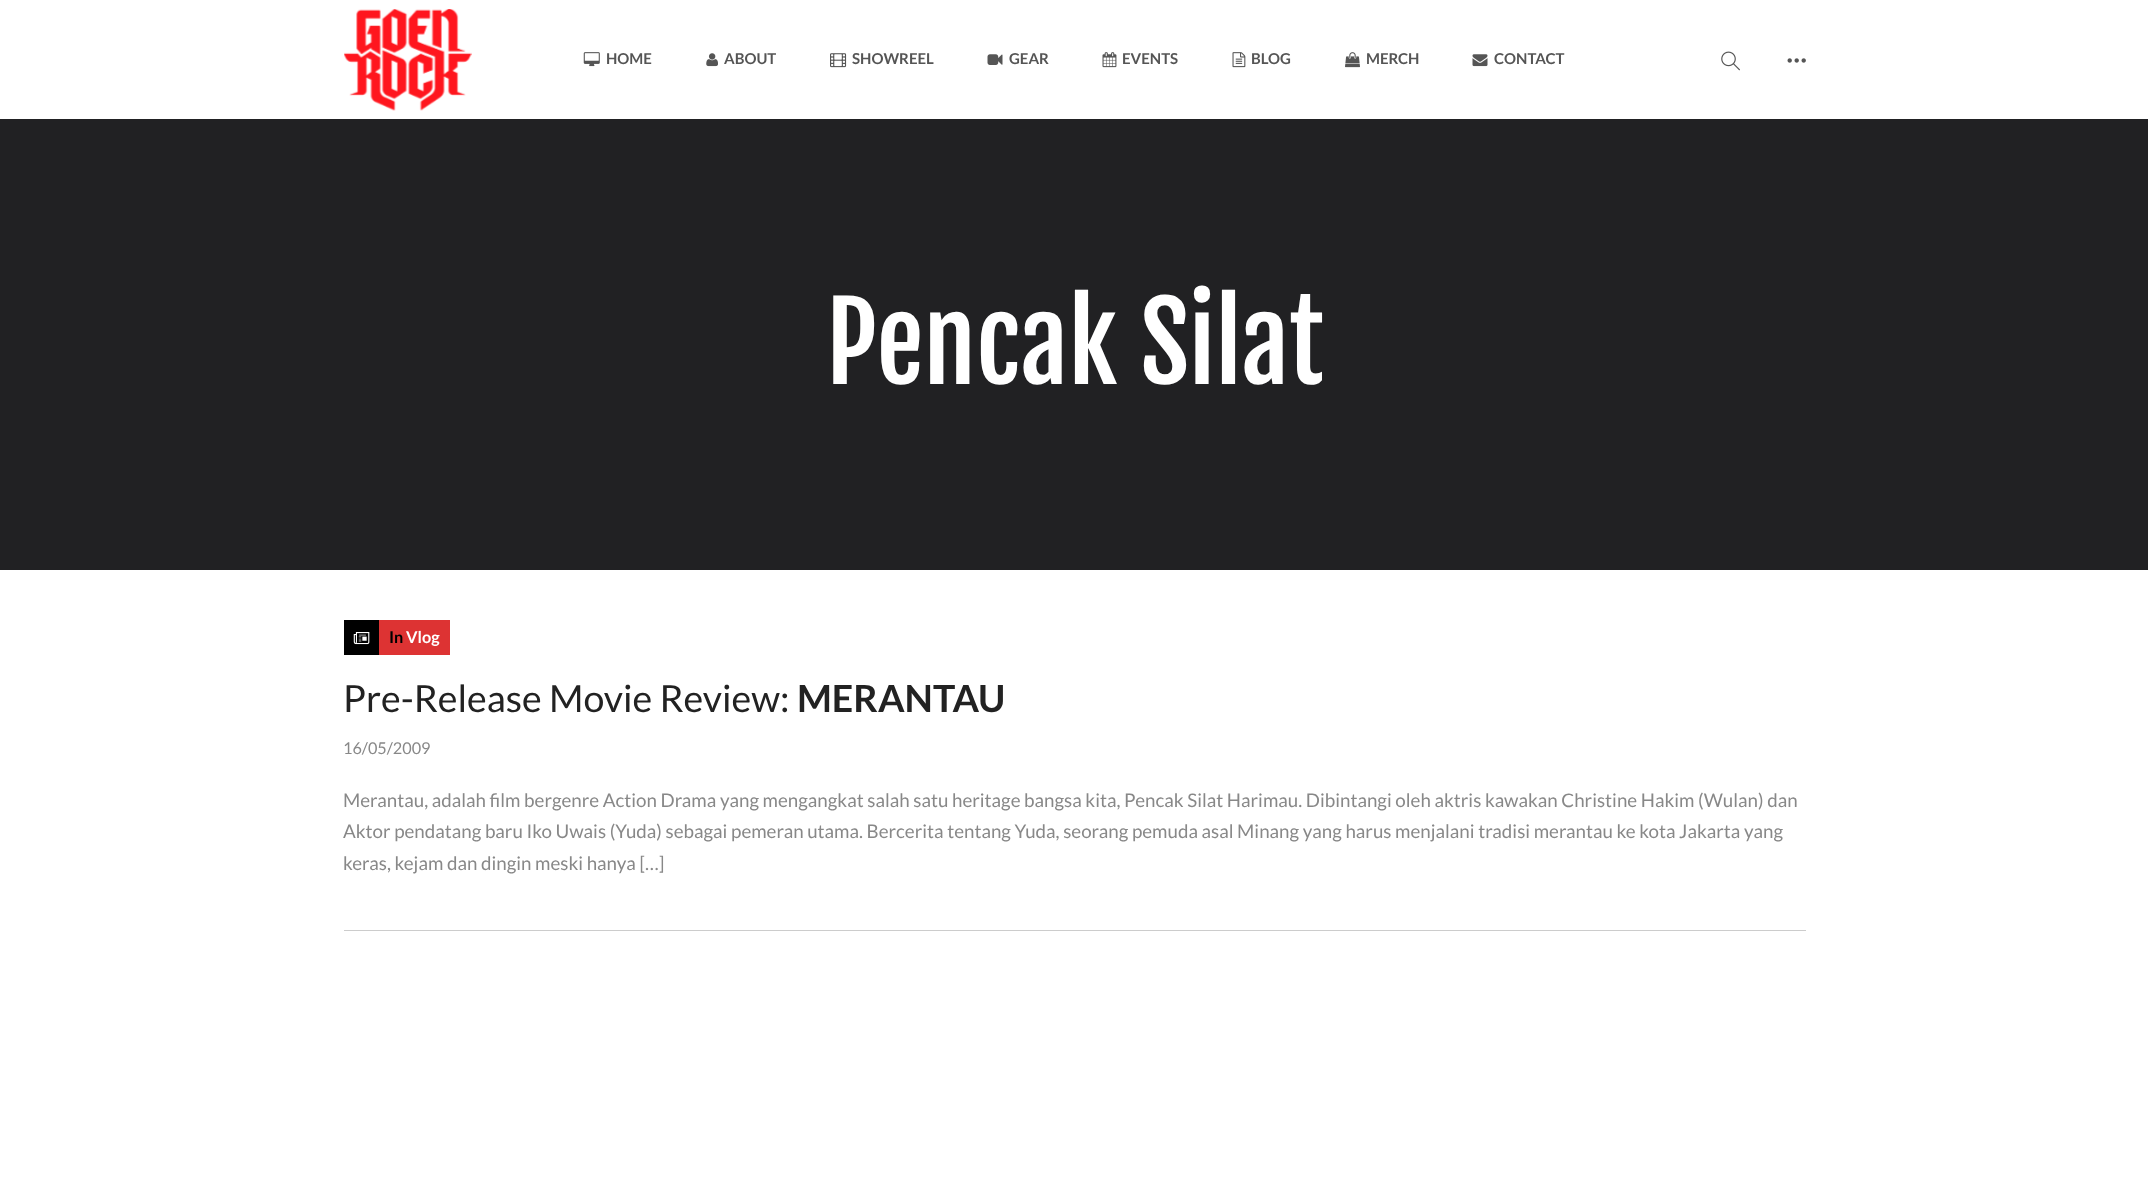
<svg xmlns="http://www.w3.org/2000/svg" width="2148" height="1179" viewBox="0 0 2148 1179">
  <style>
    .t1 { font: bold 15px Lato; fill: #555; }
    .t2 { font: 106.25px Fjalla One; fill: #fff; }
    .t3 { font: bold 16.25px Lato; fill: #000; }
    .t4 { font: bold 16.25px Lato; fill: #fff; }
    .t5 { font: 37.5px Lato; fill: #222; }
    .t6 { font: bold 37.5px Lato; fill: #222; }
    .t7 { font: 16.25px Lato; fill: #888; }
    .t8 { font: 18.75px Lato; fill: #888; }
  </style>
  <rect width="100%" height="100%" fill="#fff"/>
  <image x="344" y="9" width="128" height="102" href="images/1.png"/>
  <image x="583" y="52" width="17" height="15" href="images/2.png"/>
  <text x="606" y="64" class="t1">HOME</text>
  <image x="706" y="53" width="12" height="14" href="images/3.png"/>
  <text x="724" y="64" class="t1">ABOUT</text>
  <image x="830" y="53" width="17" height="15" href="images/4.png"/>
  <text x="852" y="64" class="t1">SHOWREEL</text>
  <image x="987" y="54" width="16" height="11" href="images/5.png"/>
  <text x="1009" y="64" class="t1">GEAR</text>
  <image x="1102" y="52" width="15" height="16" href="images/6.png"/>
  <text x="1122" y="64" class="t1">EVENTS</text>
  <image x="1232" y="52" width="14" height="16" href="images/7.png"/>
  <text x="1251" y="64" class="t1">BLOG</text>
  <image x="1345" y="52" width="15" height="16" href="images/8.png"/>
  <text x="1366" y="64" class="t1">MERCH</text>
  <image x="1472" y="54" width="16" height="13" href="images/9.png"/>
  <text x="1494" y="64" class="t1">CONTACT</text>
  <image x="1721" y="51" width="19" height="20" href="images/10.png"/>
  <image x="1787" y="58" width="19" height="5" href="images/11.png"/>
  <rect x="0" y="119" width="2148" height="451" fill="#212123"/>
  <text x="826" y="384" class="t2">Pencak Silat</text>
  <rect x="344" y="930" width="1462" height="1" fill="#ccc"/>
  <rect x="344" y="620" width="35" height="35" fill="#000"/>
  <image x="353" y="632" width="17" height="13" href="images/12.png"/>
  <rect x="379" y="620" width="71" height="35" fill="#d33"/>
  <text x="389" y="643" class="t3">In</text>
  <text x="406" y="643" class="t4">Vlog</text>
  <text x="343" y="712" class="t5">Pre-Release Movie Review:</text>
  <text x="797" y="712" class="t6">MERANTAU</text>
  <text x="343" y="754" class="t7">16/05/2009</text>
  <text x="343" y="807" class="t8">Merantau, adalah film bergenre Action Drama yang mengangkat salah satu heritage bangsa kita, Pencak Silat Harimau. Dibintangi oleh aktris kawakan Christine Hakim (Wulan) dan</text>
  <text x="343" y="838" class="t8">Aktor pendatang baru Iko Uwais (Yuda) sebagai pemeran utama. Bercerita tentang Yuda, seorang pemuda asal Minang yang harus menjalani tradisi merantau ke kota Jakarta yang</text>
  <text x="343" y="870" class="t8">keras, kejam dan dingin meski hanya […]</text>
</svg>
